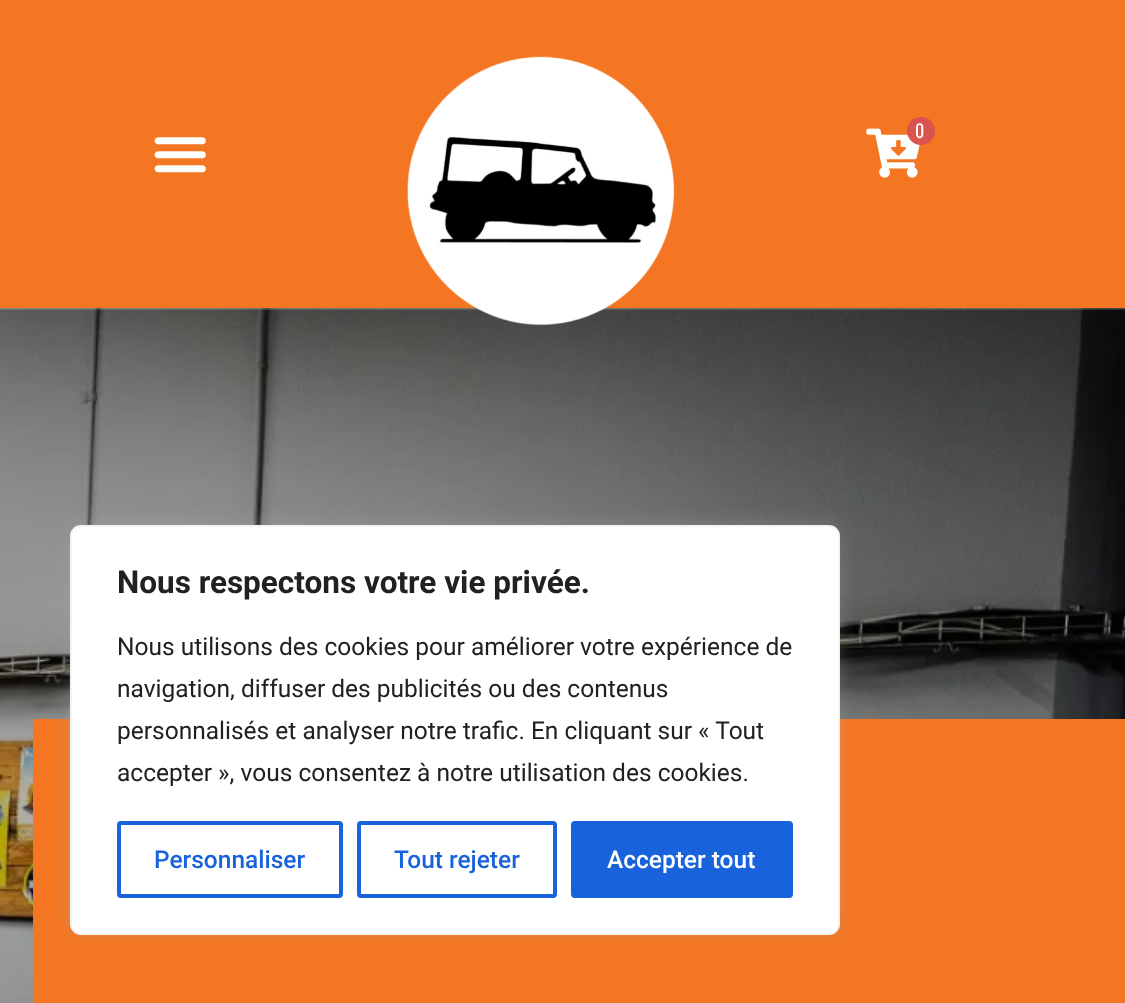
<svg xmlns="http://www.w3.org/2000/svg" width="1125" height="1003" viewBox="0 0 1125 1003">
  <style>
    .t1 { font: 18px Oswald; letter-spacing: 2px; fill: #fff; }
    .t2 { font: bold 31.5px Roboto; fill: #212121; }
    .t3 { font: 24.5px Roboto; fill: #212121; }
    .t4 { font: 500 24.5px Roboto; fill: #1863dc; }
    .t5 { font: 500 24.5px Roboto; fill: #fff; }
  </style>
  <rect width="100%" height="100%" fill="#fff"/>
  <rect x="0" y="0" width="1125" height="308" fill="#f47622"/>
  <image x="0" y="308" width="1125" height="695" href="images/4.png"/>
  <image x="407" y="56" width="268" height="270" href="images/1.png"/>
  <image x="866" y="128" width="54" height="50" href="images/2.png"/>
  <circle cx="921" cy="131" r="14" fill="#d9534f"/>
  <text x="915" y="138" class="t1">0</text>
  <image x="154" y="137" width="52" height="36" href="images/3.png"/>
  <rect x="33" y="719" width="1092" height="284" fill="#f47622"/>
  <rect x="70" y="523" width="770" height="410" rx="11" fill="#acabab4d" filter="blur(9px)"/>
  <rect x="71" y="526" width="768" height="408" rx="10" fill="#fff" stroke="#f4f4f4" stroke-width="2"/>
  <text x="117" y="593" class="t2">Nous respectons votre vie privée.</text>
  <text x="117" y="655" class="t3">Nous utilisons des cookies pour améliorer votre expérience de</text>
  <text x="117" y="697" class="t3">navigation, diffuser des publicités ou des contenus</text>
  <text x="117" y="739" class="t3">personnalisés et analyser notre trafic. En cliquant sur « Tout</text>
  <text x="117" y="781" class="t3">accepter », vous consentez à notre utilisation des cookies.</text>
  <rect x="119" y="823" width="222" height="73" rx="2" fill="none" stroke="#1863dc" stroke-width="4"/>
  <text x="154" y="868" class="t4">Personnaliser</text>
  <rect x="359" y="823" width="196" height="73" rx="2" fill="none" stroke="#1863dc" stroke-width="4"/>
  <text x="394" y="868" class="t4">Tout rejeter</text>
  <rect x="573" y="823" width="218" height="73" rx="2" fill="#1863dc" stroke="#1863dc" stroke-width="4"/>
  <text x="607" y="868" class="t5">Accepter tout</text>
</svg>
